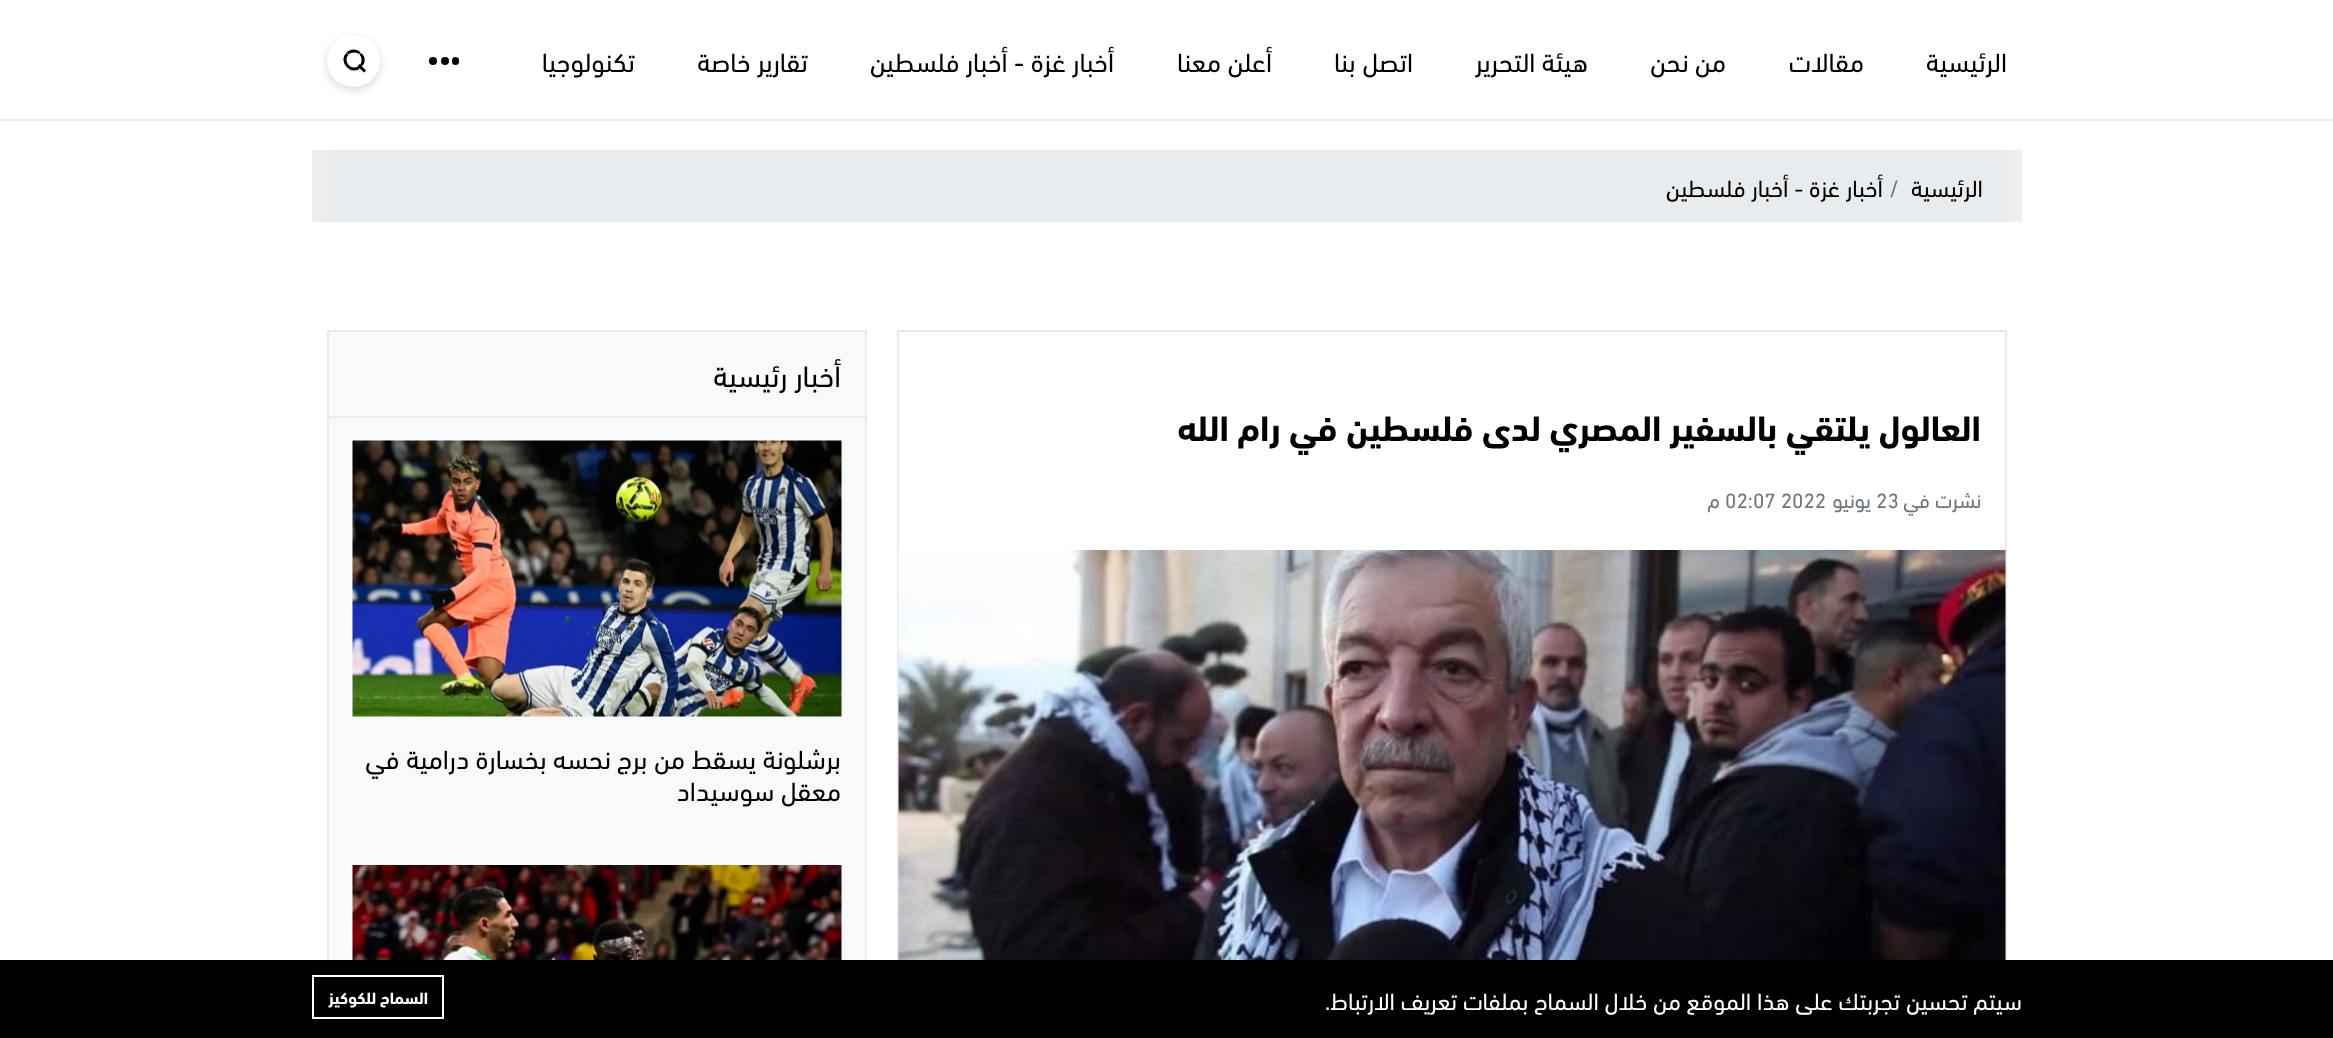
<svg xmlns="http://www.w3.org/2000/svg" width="2333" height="1038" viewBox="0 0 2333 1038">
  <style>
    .t1 { font: 27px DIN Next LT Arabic; direction: rtl; fill: #000; }
    .t2 { font: 24px DIN Next LT Arabic; direction: rtl; fill: #000; }
    .t3 { font: 24px DIN Next LT Arabic; fill: #6c757d; }
    .t4 { font: bold 36px DIN Next LT Arabic; direction: rtl; fill: #000; }
    .t5 { font: 21px DIN Next LT Arabic; direction: rtl; fill: #6c757d; }
    .t6 { font: 21px DIN Next LT Arabic; fill: #6c757d; }
    .t7 { font: 30px DIN Next LT Arabic; direction: rtl; fill: #000; }
    .t8 { font: 24px DIN Next LT Arabic; direction: rtl; fill: #fff; }
    .t9 { font: bold 16.5px DIN Next LT Arabic; direction: rtl; fill: #fff; }
  </style>
  <defs>
    <clipPath id="clip1"><path d="M338.5 60L346 52.5L360.5 67.5L353 75Z"/></clipPath>
    <clipPath id="clip2"><path d="M346 52.5L353.5 45L360.5 52.5L353 60Z"/></clipPath>
    <clipPath id="clip3"><path d="M353 60L360.5 52.5L368 60L360.5 67.5Z"/></clipPath>
  </defs>
  <rect width="100%" height="100%" fill="#fff"/>
  <rect x="0" y="119" width="2333" height="2" fill="#eee"/>
  <text x="2007" y="72" class="t1">الرئيسية</text>
  <text x="1864" y="72" class="t1">مقالات</text>
  <text x="1726" y="72" class="t1">من نحن</text>
  <text x="1588" y="72" class="t1">هيئة التحرير</text>
  <text x="1413" y="72" class="t1">اتصل بنا</text>
  <text x="1272" y="72" class="t1">أعلن معنا</text>
  <text x="1114" y="72" class="t1">أخبار غزة - أخبار فلسطين</text>
  <text x="808" y="72" class="t1">تقارير خاصة</text>
  <text x="635" y="72" class="t1">تكنولوجيا</text>
  <circle cx="445" cy="61" r="4" fill="#000"/>
  <rect x="452" y="57" width="7" height="8" rx="3.5" fill="#000"/>
  <circle cx="433" cy="61" r="4" fill="#000"/>
  <rect x="327" y="38" width="53" height="52" rx="26" fill="#00000026" filter="blur(4px)"/>
  <rect x="327" y="35" width="53" height="52" rx="26" fill="#fff"/>
  <g clip-path="url(#clip1)">
    <path d="M360.5 66.5C352 74.5 339.5 62 347.5 53.5" fill="none" stroke="#000" stroke-width="3"/>
  </g>
  <g clip-path="url(#clip2)">
    <path d="M347.5 53.5C351 50 357 50 360.5 53.5" fill="none" stroke="#000" stroke-width="3"/>
  </g>
  <g clip-path="url(#clip3)">
    <path d="M360.5 53.5C364 57 364 63 360.5 66.5" fill="none" stroke="#000" stroke-width="3"/>
  </g>
  <path d="M361.5 70L357.5 66.5L359.5 64L366 70.5L364 72.5Z" fill="#000"/>
  <rect x="312" y="150" width="1710" height="72" fill="#eee"/>
  <rect x="327" y="150" width="1680" height="72" rx="6" fill="#e9ecef"/>
  <text x="1983" y="197" class="t2">الرئيسية</text>
  <text x="1889" y="197" class="t3">/</text>
  <text x="1883" y="197" class="t2">أخبار غزة - أخبار فلسطين</text>
  <rect x="898" y="331" width="1108" height="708" fill="none" stroke="#eaeaea" stroke-width="2"/>
  <text x="1981" y="441" class="t4">العالول يلتقي بالسفير المصري لدى فلسطين في رام الله</text>
  <text x="1981" y="508" class="t5">نشرت في</text>
  <text x="1876" y="508" class="t6">23</text>
  <text x="1871" y="508" class="t5">يونيو</text>
  <text x="1725" y="508" class="t6">02:07 2022</text>
  <text x="1720" y="508" class="t5">م</text>
  <image x="898" y="550" width="1108" height="410" href="images/1.png"/>
  <rect x="329" y="332" width="536" height="628" fill="#f8f9fa"/>
  <rect x="328" y="331" width="538" height="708" fill="none" stroke="#eaeaea" stroke-width="2"/>
  <rect x="329" y="416" width="537" height="2" fill="#eaeaea"/>
  <text x="841" y="387" class="t7">أخبار رئيسية</text>
  <image x="352" y="440" width="490" height="277" href="images/2.png"/>
  <text x="841" y="769" class="t1">برشلونة يسقط من برج نحسه بخسارة درامية في</text>
  <text x="841" y="801" class="t1">معقل سوسيداد</text>
  <image x="352" y="865" width="490" height="95" href="images/3.png"/>
  <rect x="0" y="960" width="2333" height="78" fill="#000"/>
  <text x="2022" y="1010" class="t8">سيتم تحسين تجربتك على هذا الموقع من خلال السماح بملفات تعريف الارتباط.</text>
  <rect x="313" y="976" width="130" height="42" fill="none" stroke="#fff" stroke-width="2"/>
  <text x="428" y="1004" class="t9">السماح للكوكيز</text>
</svg>
